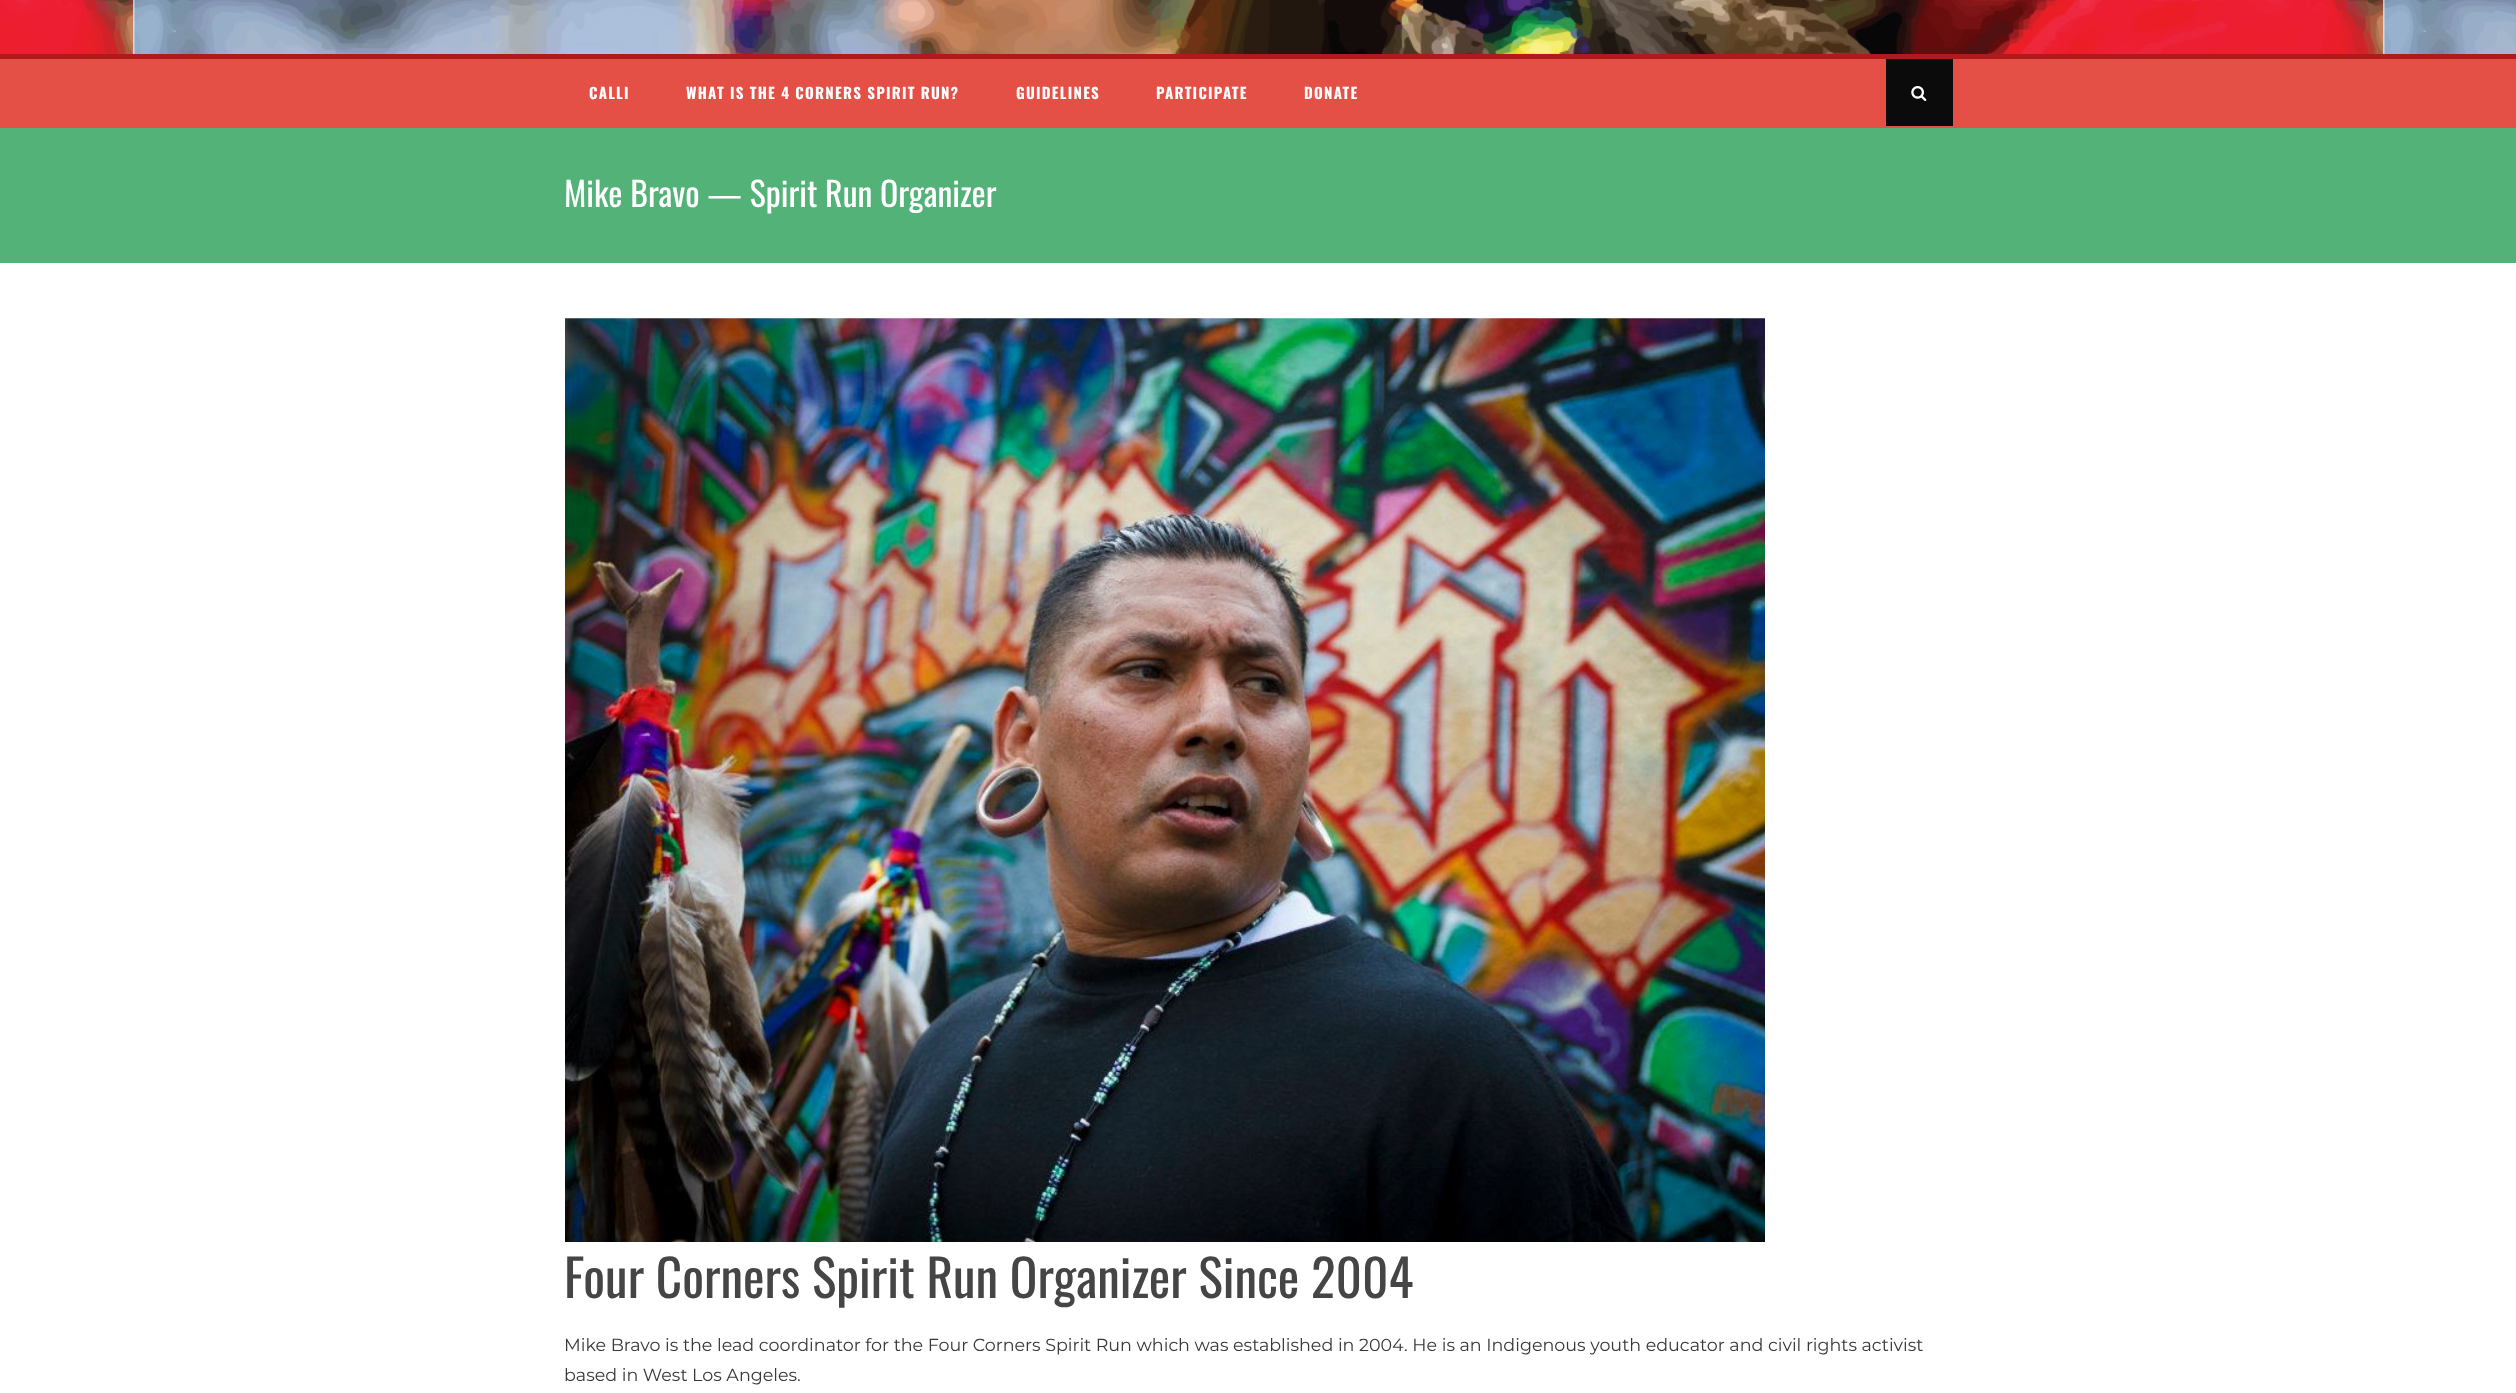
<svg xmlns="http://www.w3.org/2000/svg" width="2516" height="1393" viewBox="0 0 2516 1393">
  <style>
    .t1 { font: bold 15px Oswald; letter-spacing: 1.25px; fill: #fff; }
    .t2 { font: 33.75px Oswald; fill: #fff; }
    .t3 { font: 51.25px Oswald; fill: #454545; }
    .t4 { font: 17.5px Montserrat; fill: #383838; }
  </style>
  <rect width="100%" height="100%" fill="#fff"/>
  <image x="0" y="0" width="2516" height="54" href="images/1.png"/>
  <rect x="0" y="59" width="2516" height="69" fill="#e44f46"/>
  <rect x="0" y="54" width="2516" height="5" fill="#af1a1a"/>
  <text x="589" y="99" class="t1">CALLI</text>
  <text x="686" y="99" class="t1">WHAT IS THE 4 CORNERS SPIRIT RUN?</text>
  <text x="1016" y="99" class="t1">GUIDELINES</text>
  <text x="1156" y="99" class="t1">PARTICIPATE</text>
  <text x="1304" y="99" class="t1">DONATE</text>
  <rect x="1886" y="59" width="67" height="67" fill="#0b0b0b"/>
  <image x="1911" y="86" width="16" height="16" href="images/2.png"/>
  <rect x="0" y="128" width="2516" height="135" fill="#52b278"/>
  <text x="564" y="207" class="t2">Mike Bravo — Spirit Run Organizer</text>
  <image x="565" y="318" width="1200" height="924" href="images/3.png"/>
  <text x="564" y="1298" class="t3">Four Corners Spirit Run Organizer Since 2004</text>
  <text x="564" y="1351" class="t4">Mike Bravo is the lead coordinator for the Four Corners Spirit Run which was established in 2004. He is an Indigenous youth educator and civil rights activist</text>
  <text x="564" y="1381" class="t4">based in West Los Angeles.</text>
</svg>
